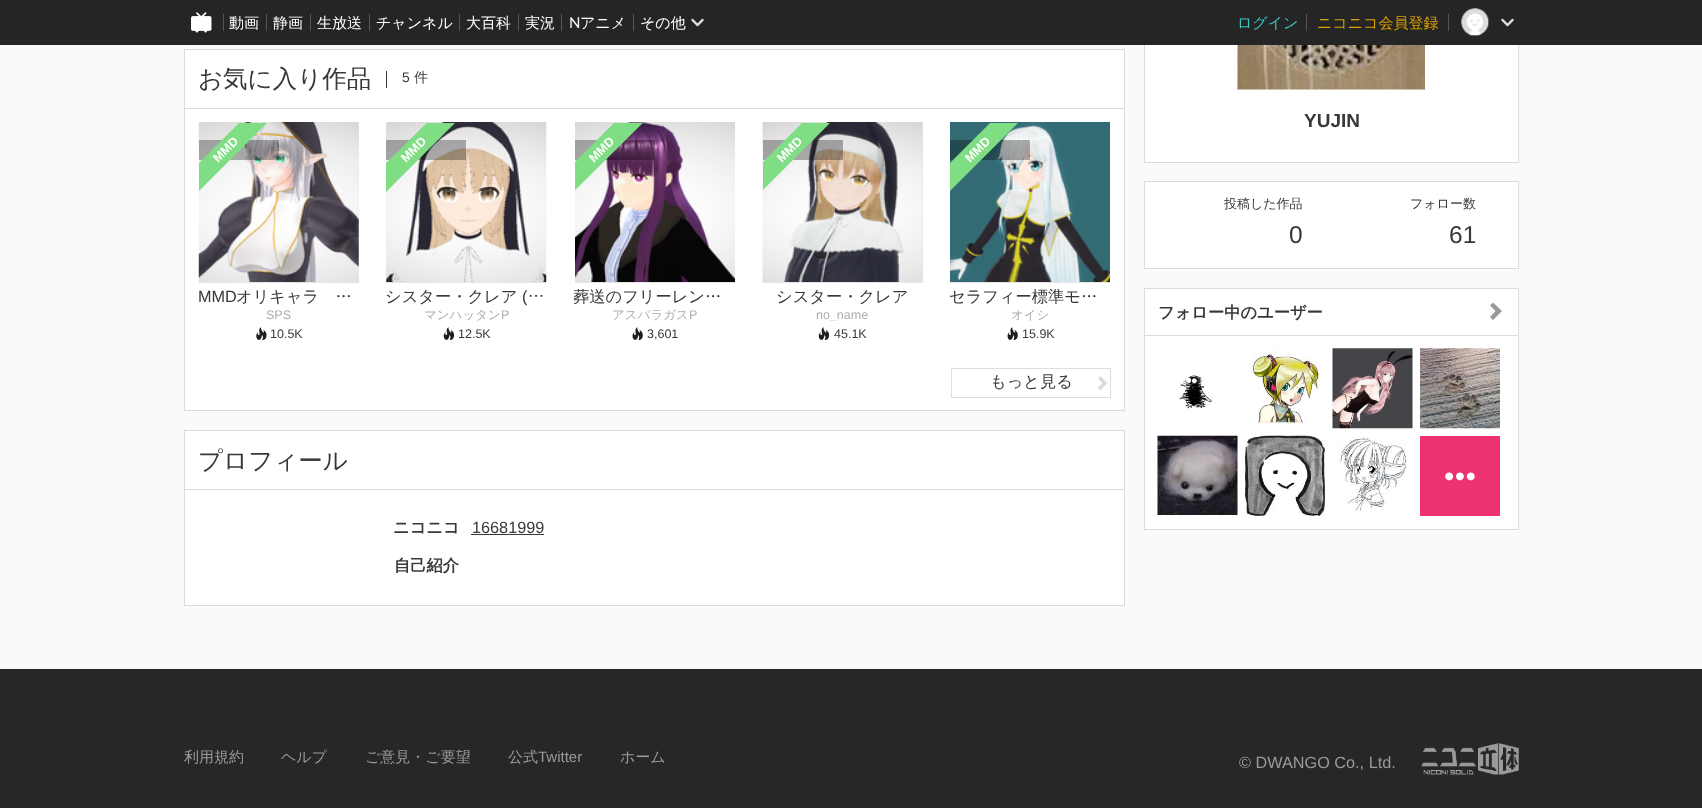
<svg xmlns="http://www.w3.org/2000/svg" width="1702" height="808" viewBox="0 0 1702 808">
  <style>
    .t1 { font: 500 15px WenQuanYi Zen Hei; fill: #fff; }
    .t2 { font: 15px Lato; fill: #fff; }
    .t3 { font: 500 15px WenQuanYi Zen Hei; fill: #39c4c1; }
    .t4 { font: 500 15px WenQuanYi Zen Hei; fill: #d9a300; }
    .t5 { font: 500 24.5px WenQuanYi Zen Hei; fill: #383838; }
    .t6 { font: 14px Liberation Sans; fill: #383838; }
    .t7 { font: 500 14px WenQuanYi Zen Hei; fill: #383838; }
    .t8 { font: bold 12.5px Liberation Sans; fill: #fff; }
    .t9 { font: 16.25px Liberation Sans; fill: #383838; }
    .t10 { font: 500 16.25px WenQuanYi Zen Hei; fill: #383838; }
    .t11 { font: 12.5px Liberation Sans; fill: #aeaeae; }
    .t12 { font: 12.5px Liberation Sans; fill: #383838; }
    .t13 { font: 16.25px IPAPGothic; fill: #383838; }
    .t14 { font: 500 12.5px WenQuanYi Zen Hei; fill: #aeaeae; }
    .t15 { font: bold 16.25px WenQuanYi Zen Hei; fill: #383838; }
    .t16 { font: bold 19px Liberation Sans; fill: #383838; }
    .t17 { font: 500 13px WenQuanYi Zen Hei; fill: #383838; }
    .t18 { font: 24.5px Liberation Sans; fill: #383838; }
    .t19 { font: 500 15px WenQuanYi Zen Hei; fill: #9b9a9a; }
    .t20 { font: 15px Liberation Sans; fill: #9b9a9a; }
    .t21 { font: 16.25px Liberation Sans; fill: #9b9a9a; }
  </style>
  <defs>
    <clipPath id="clip1"><rect x="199" y="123" width="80" height="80"/></clipPath>
    <clipPath id="clip2"><rect x="199" y="123" width="80" height="80"/></clipPath>
    <clipPath id="clip3"><rect x="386" y="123" width="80" height="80"/></clipPath>
    <clipPath id="clip4"><rect x="386" y="123" width="80" height="80"/></clipPath>
    <clipPath id="clip5"><rect x="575" y="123" width="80" height="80"/></clipPath>
    <clipPath id="clip6"><rect x="575" y="123" width="80" height="80"/></clipPath>
    <clipPath id="clip7"><rect x="574" y="289" width="162" height="16"/></clipPath>
    <clipPath id="clip8"><rect x="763" y="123" width="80" height="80"/></clipPath>
    <clipPath id="clip9"><rect x="763" y="123" width="80" height="80"/></clipPath>
    <clipPath id="clip10"><rect x="761" y="121" width="163" height="200"/></clipPath>
    <clipPath id="clip11"><rect x="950" y="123" width="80" height="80"/></clipPath>
    <clipPath id="clip12"><rect x="950" y="123" width="80" height="80"/></clipPath>
    <clipPath id="clip13"><rect x="949" y="289" width="162" height="16"/></clipPath>
  </defs>
  <rect width="100%" height="100%" fill="#fafafa"/>
  <rect x="1145" y="45" width="373" height="117" fill="#fff"/>
  <rect x="1144.5" y="-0.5" width="374" height="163" fill="none" stroke="#dbdbdb"/>
  <rect x="0" y="0" width="1702" height="45" fill="#252525"/>
  <image x="191" y="12" width="21" height="21" href="images/1.png"/>
  <rect x="223" y="14" width="1" height="17" fill="#555"/>
  <text x="229" y="28" class="t1">動画</text>
  <rect x="266" y="14" width="1" height="17" fill="#555"/>
  <text x="273" y="28" class="t1">静画</text>
  <rect x="310" y="14" width="1" height="17" fill="#555"/>
  <text x="317" y="28" class="t1">生放送</text>
  <rect x="369" y="14" width="1" height="17" fill="#555"/>
  <text x="376" y="28" class="t1">チャンネル</text>
  <rect x="459" y="14" width="1" height="17" fill="#555"/>
  <text x="466" y="28" class="t1">大百科</text>
  <rect x="518" y="14" width="1" height="17" fill="#555"/>
  <text x="525" y="28" class="t1">実況</text>
  <rect x="561" y="14" width="1" height="17" fill="#555"/>
  <text x="569" y="28" class="t2">N</text>
  <text x="580" y="28" class="t1">アニメ</text>
  <rect x="633" y="14" width="1" height="17" fill="#555"/>
  <text x="640" y="28" class="t1">その他</text>
  <image x="691" y="18" width="13" height="9" href="images/2.png"/>
  <text x="1237" y="28" class="t3">ログイン</text>
  <rect x="1306" y="14" width="1" height="17" fill="#555"/>
  <text x="1317" y="28" class="t4">ニコニコ会員登録</text>
  <rect x="1448" y="14" width="1" height="17" fill="#555"/>
  <image x="1461" y="8" width="29" height="29" href="images/3.png"/>
  <image x="1501" y="18" width="13" height="9" href="images/2.png"/>
  <rect x="184.5" y="49.5" width="940" height="361" fill="#fff" stroke="#dbdbdb"/>
  <rect x="185" y="108" width="939" height="1" fill="#dbdbdb"/>
  <text x="198" y="87" class="t5">お気に入り作品</text>
  <rect x="386" y="71" width="1" height="17" fill="#383838"/>
  <text x="402" y="82" class="t6">5</text>
  <text x="414" y="82" class="t7">件</text>
  <rect x="199" y="123" width="160" height="160" fill="#0000001a" filter="blur(0.5px)"/>
  <image x="198" y="122" width="161" height="160" href="images/4.png"/>
  <g clip-path="url(#clip1)">
    <rect x="146" y="140" width="160" height="20" fill="#0000004d" filter="blur(0.5px)"/>
  </g>
  <g clip-path="url(#clip2)">
    <path d="M163 199L276 86L290 100L177 213Z" fill="#7fdd83"/>
  </g>
  <text x="218" y="163" transform="rotate(-45 218 163)" class="t8">MMD</text>
  <text x="198" y="302" class="t9">MMD</text>
  <text x="236" y="302" class="t10">オリキャラ　…</text>
  <text x="266" y="319" class="t11">SPS</text>
  <image x="256" y="327" width="11" height="13" href="images/5.png"/>
  <text x="270" y="338" class="t12">10.5K</text>
  <rect x="386" y="123" width="160" height="160" fill="#0000001a" filter="blur(0.5px)"/>
  <image x="386" y="122" width="161" height="160" href="images/6.png"/>
  <g clip-path="url(#clip3)">
    <rect x="334" y="140" width="160" height="20" fill="#0000004d" filter="blur(0.5px)"/>
  </g>
  <g clip-path="url(#clip4)">
    <path d="M350 199L464 86L478 100L365 213Z" fill="#7fdd83"/>
  </g>
  <text x="406" y="163" transform="rotate(-45 406 163)" class="t8">MMD</text>
  <text x="385" y="302" class="t10">シスター・クレア</text>
  <text x="522" y="302" class="t9">(</text>
  <text x="528" y="302" class="t13">…</text>
  <text x="424" y="319" class="t14">マンハッタン</text>
  <text x="501" y="319" class="t11">P</text>
  <image x="443" y="327" width="12" height="13" href="images/7.png"/>
  <text x="458" y="338" class="t12">12.5K</text>
  <rect x="575" y="123" width="160" height="160" fill="#0000001a" filter="blur(0.5px)"/>
  <image x="575" y="122" width="160" height="160" href="images/8.png"/>
  <g clip-path="url(#clip5)">
    <rect x="523" y="140" width="160" height="20" fill="#0000004d" filter="blur(0.5px)"/>
  </g>
  <g clip-path="url(#clip6)">
    <path d="M538 199L651 86L666 100L552 213Z" fill="#7fdd83"/>
  </g>
  <text x="594" y="163" transform="rotate(-45 594 163)" class="t8">MMD</text>
  <g clip-path="url(#clip7)">
    <text x="573" y="302" class="t10">葬送のフリーレン…</text>
  </g>
  <text x="612" y="319" class="t14">アスパラガス</text>
  <text x="689" y="319" class="t11">P</text>
  <image x="632" y="327" width="11" height="13" href="images/9.png"/>
  <text x="647" y="338" class="t12">3,601</text>
  <rect x="763" y="123" width="160" height="160" fill="#0000001a" filter="blur(0.5px)"/>
  <image x="762" y="122" width="161" height="160" href="images/10.png"/>
  <g clip-path="url(#clip8)">
    <rect x="710" y="140" width="160" height="20" fill="#0000004d" filter="blur(0.5px)"/>
  </g>
  <g clip-path="url(#clip9)">
    <path d="M726 199L839 86L853 100L740 213Z" fill="#7fdd83"/>
  </g>
  <text x="782" y="163" transform="rotate(-45 782 163)" class="t8">MMD</text>
  <text x="776" y="302" class="t10">シスター・クレア</text>
  <g clip-path="url(#clip10)">
    <text x="816" y="319" class="t11">no_name</text>
  </g>
  <image x="818" y="327" width="12" height="13" href="images/7.png"/>
  <text x="834" y="338" class="t12">45.1K</text>
  <rect x="950" y="123" width="160" height="160" fill="#0000001a" filter="blur(0.5px)"/>
  <image x="950" y="122" width="160" height="160" href="images/11.png"/>
  <g clip-path="url(#clip11)">
    <rect x="898" y="140" width="160" height="20" fill="#0000004d" filter="blur(0.5px)"/>
  </g>
  <g clip-path="url(#clip12)">
    <path d="M914 199L1027 86L1041 100L928 213Z" fill="#7fdd83"/>
  </g>
  <text x="970" y="163" transform="rotate(-45 970 163)" class="t8">MMD</text>
  <g clip-path="url(#clip13)">
    <text x="949" y="302" class="t10">セラフィー標準モ…</text>
  </g>
  <text x="1011" y="319" class="t14">オイシ</text>
  <image x="1007" y="327" width="11" height="13" href="images/9.png"/>
  <text x="1022" y="338" class="t12">15.9K</text>
  <rect x="951.5" y="368.5" width="159" height="29" fill="none" stroke="#ddd"/>
  <text x="990" y="387" class="t10">もっと見る</text>
  <image x="1098" y="376" width="10" height="14" href="images/12.png"/>
  <rect x="184.5" y="430.5" width="940" height="175" fill="#fff" stroke="#dbdbdb"/>
  <rect x="185" y="489" width="939" height="1" fill="#dbdbdb"/>
  <text x="198" y="469" class="t5">プロフィール</text>
  <text x="393" y="533" class="t15">ニコニコ</text>
  <text x="472" y="533" class="t9">16681999</text>
  <rect x="471" y="534" width="73" height="1" fill="#383838"/>
  <text x="394" y="571" class="t15">自己紹介</text>
  <image x="1237" y="45" width="188" height="45" href="images/13.png"/>
  <text x="1304" y="127" class="t16">YUJIN</text>
  <rect x="1144.5" y="181.5" width="374" height="87" fill="#fff" stroke="#dbdbdb"/>
  <text x="1224" y="208" class="t17">投稿した作品</text>
  <text x="1289" y="243" class="t18">0</text>
  <text x="1410" y="208" class="t17">フォロー数</text>
  <text x="1449" y="243" class="t18">61</text>
  <rect x="1144.5" y="288.5" width="374" height="241" fill="#fff" stroke="#dbdbdb"/>
  <rect x="1145" y="335" width="373" height="1" fill="#dbdbdb"/>
  <text x="1158" y="318" class="t15">フォロー中のユーザー</text>
  <path d="M1490 317L1495.5 311L1490 305.5L1493 302.5L1502 311L1493 320Z" fill="#999"/>
  <image x="1179" y="374" width="34" height="38" href="images/14.png"/>
  <image x="1250" y="348" width="72" height="77" href="images/15.png"/>
  <image x="1332" y="348" width="81" height="81" href="images/16.png"/>
  <image x="1420" y="348" width="80" height="81" href="images/17.png"/>
  <image x="1157" y="435" width="81" height="81" href="images/18.png"/>
  <image x="1245" y="435" width="80" height="81" href="images/19.png"/>
  <image x="1337" y="436" width="72" height="76" href="images/20.png"/>
  <rect x="1420" y="436" width="80" height="80" fill="#ec3272"/>
  <image x="1445" y="472" width="30" height="9" href="images/21.png"/>
  <rect x="0" y="669" width="1702" height="139" fill="#272727"/>
  <text x="184" y="762" class="t19">利用規約</text>
  <text x="281" y="762" class="t19">ヘルプ</text>
  <text x="365" y="762" class="t19">ご意見・ご要望</text>
  <text x="508" y="762" class="t19">公式</text>
  <text x="538" y="762" class="t20">Twitter</text>
  <text x="620" y="762" class="t19">ホーム</text>
  <text x="1239" y="768" class="t21">© DWANGO Co., Ltd.</text>
  <image x="1421" y="743" width="98" height="32" href="images/22.png"/>
</svg>
